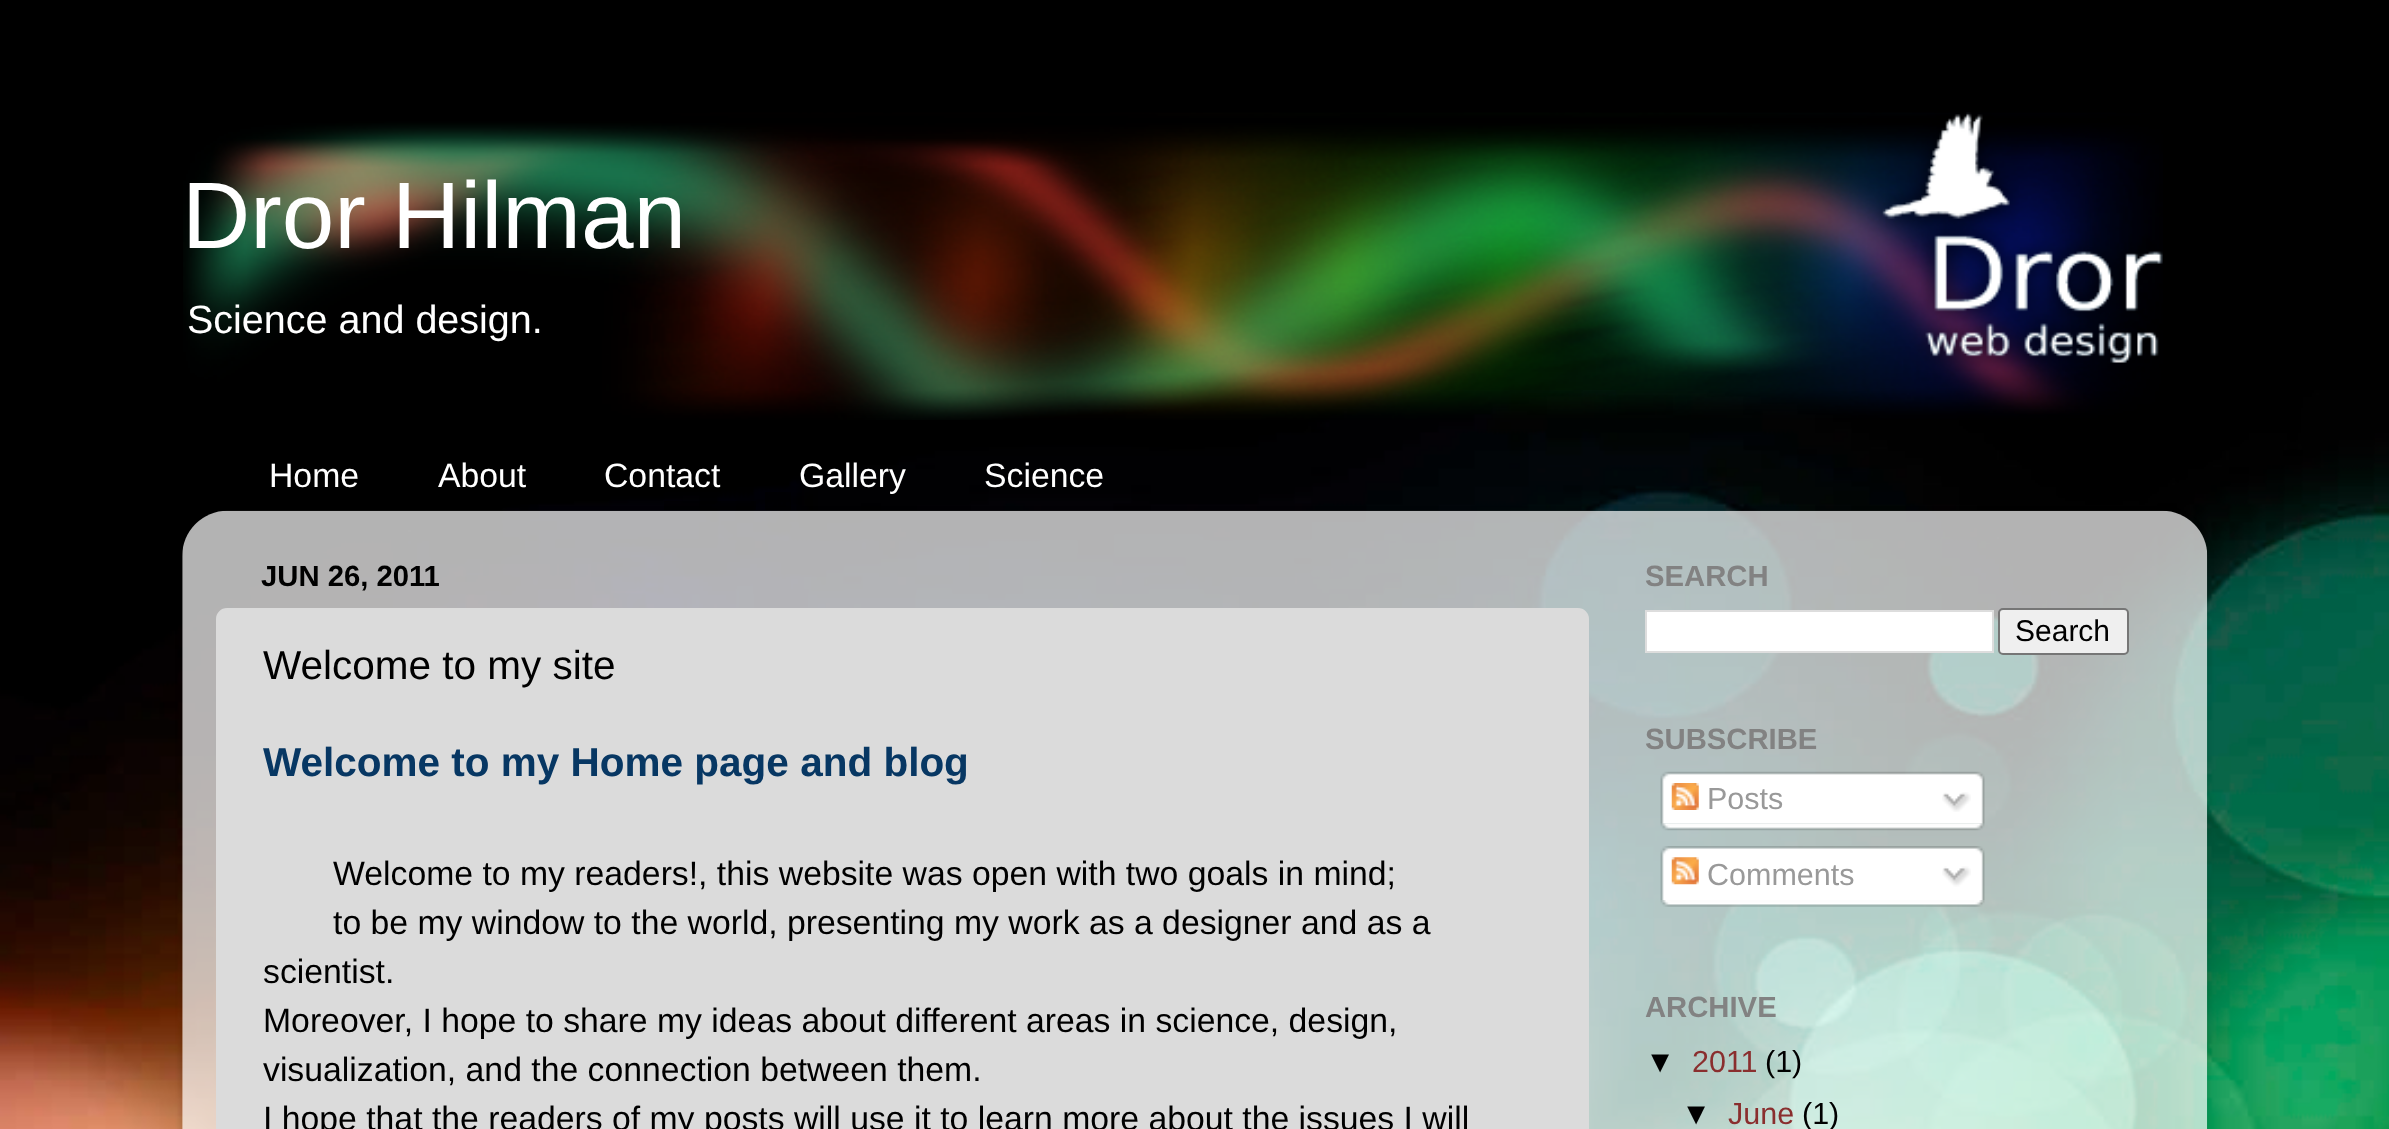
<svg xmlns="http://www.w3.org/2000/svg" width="2389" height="1129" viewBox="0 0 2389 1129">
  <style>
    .t1 { font: 94.5px Liberation Sans; fill: #fff; }
    .t2 { font: 39.5px Liberation Sans; fill: #fff; }
    .t3 { font: 33.75px Liberation Sans; fill: #fff; }
    .t4 { font: bold 29.25px Liberation Sans; fill: #000; }
    .t5 { font: 40.5px Liberation Sans; fill: #000; }
    .t6 { font: bold 40.5px Liberation Sans; fill: #073763; }
    .t7 { font: 33.75px Liberation Sans; fill: #000; }
    .t8 { font: bold 29.25px Liberation Sans; fill: #828282; }
    .t9 { font: 30px Liberation Sans; fill: #000; }
    .t10 { font: 30.5px Liberation Sans; fill: #999; }
    .t11 { font: 30.5px Liberation Sans; fill: #000; }
    .t12 { font: 30.5px Liberation Sans; fill: #8a2e2e; }
  </style>
  <defs>
    <clipPath id="clip1"><path d="M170 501H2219V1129H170ZM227 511H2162C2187 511 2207 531 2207 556V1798H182V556C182 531 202 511 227 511Z" clip-rule="evenodd"/></clipPath>
  </defs>
  <rect width="100%" height="100%" fill="#000"/>
  <image x="0" y="390" width="2389" height="739" href="images/1.png"/>
  <image x="183" y="112" width="1980" height="308" href="images/2.png"/>
  <text x="182" y="248" class="t1">Dror Hilman</text>
  <text x="187" y="333" class="t2">Science and design.</text>
  <text x="269" y="487" class="t3">Home</text>
  <text x="438" y="487" class="t3">About</text>
  <rect x="664" y="501" width="92" height="9" fill="#00000080"/>
  <text x="604" y="487" class="t3">Contact</text>
  <rect x="765" y="492" width="26" height="18" fill="#00000080"/>
  <text x="799" y="487" class="t3">Gallery</text>
  <text x="984" y="487" class="t3">Science</text>
  <g clip-path="url(#clip1)">
    <rect x="182" y="513" width="2025" height="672" rx="45" fill="#00000026" filter="blur(3.5px)"/>
  </g>
  <image x="182" y="510" width="2026" height="619" href="images/3.png"/>
  <text x="261" y="586" class="t4">JUN 26, 2011</text>
  <rect x="217" y="609" width="1371" height="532" rx="10" fill="#dbdbdb" stroke="#dbdbdb" stroke-width="2"/>
  <text x="263" y="679" class="t5">Welcome to my site</text>
  <text x="263" y="776" class="t6">Welcome to my Home page and blog</text>
  <text x="333" y="885" class="t7">Welcome to my readers!, this website was open with two goals in mind;</text>
  <text x="333" y="934" class="t7">to be my window to the world, presenting my work as a designer and as a</text>
  <text x="263" y="983" class="t7">scientist.</text>
  <text x="263" y="1032" class="t7">Moreover, I hope to share my ideas about different areas in science, design,</text>
  <text x="263" y="1081" class="t7">visualization, and the connection between them.</text>
  <text x="263" y="1130" class="t7">I hope that the readers of my posts will use it to learn more about the issues I will</text>
  <text x="1645" y="586" class="t8">SEARCH</text>
  <rect x="1646" y="611" width="347" height="41" fill="#fff" stroke="#ddd" stroke-width="2"/>
  <rect x="1999" y="609" width="129" height="45" rx="4" fill="#efefef" stroke="#767676" stroke-width="2"/>
  <text x="2015" y="641" class="t9">Search</text>
  <text x="1645" y="749" class="t8">SUBSCRIBE</text>
  <image x="1660" y="771" width="325" height="53" href="images/4.png"/>
  <image x="1671" y="783" width="28" height="27" href="images/5.png"/>
  <text x="1707" y="809" class="t10">Posts</text>
  <image x="1942" y="792" width="29" height="20" href="images/6.png"/>
  <image x="1660" y="823" width="325" height="8" href="images/7.png"/>
  <image x="1660" y="846" width="325" height="54" href="images/8.png"/>
  <image x="1671" y="857" width="28" height="28" href="images/9.png"/>
  <text x="1707" y="885" class="t10">Comments</text>
  <image x="1942" y="866" width="29" height="21" href="images/10.png"/>
  <image x="1660" y="900" width="325" height="7" href="images/11.png"/>
  <text x="1645" y="1017" class="t8">ARCHIVE</text>
  <text x="1645" y="1072" class="t11">▼</text>
  <text x="1692" y="1072" class="t12">2011</text>
  <text x="1765" y="1072" class="t11">(1)</text>
  <text x="1681" y="1124" class="t11">▼</text>
  <text x="1728" y="1124" class="t12">June</text>
  <text x="1802" y="1124" class="t11">(1)</text>
</svg>
